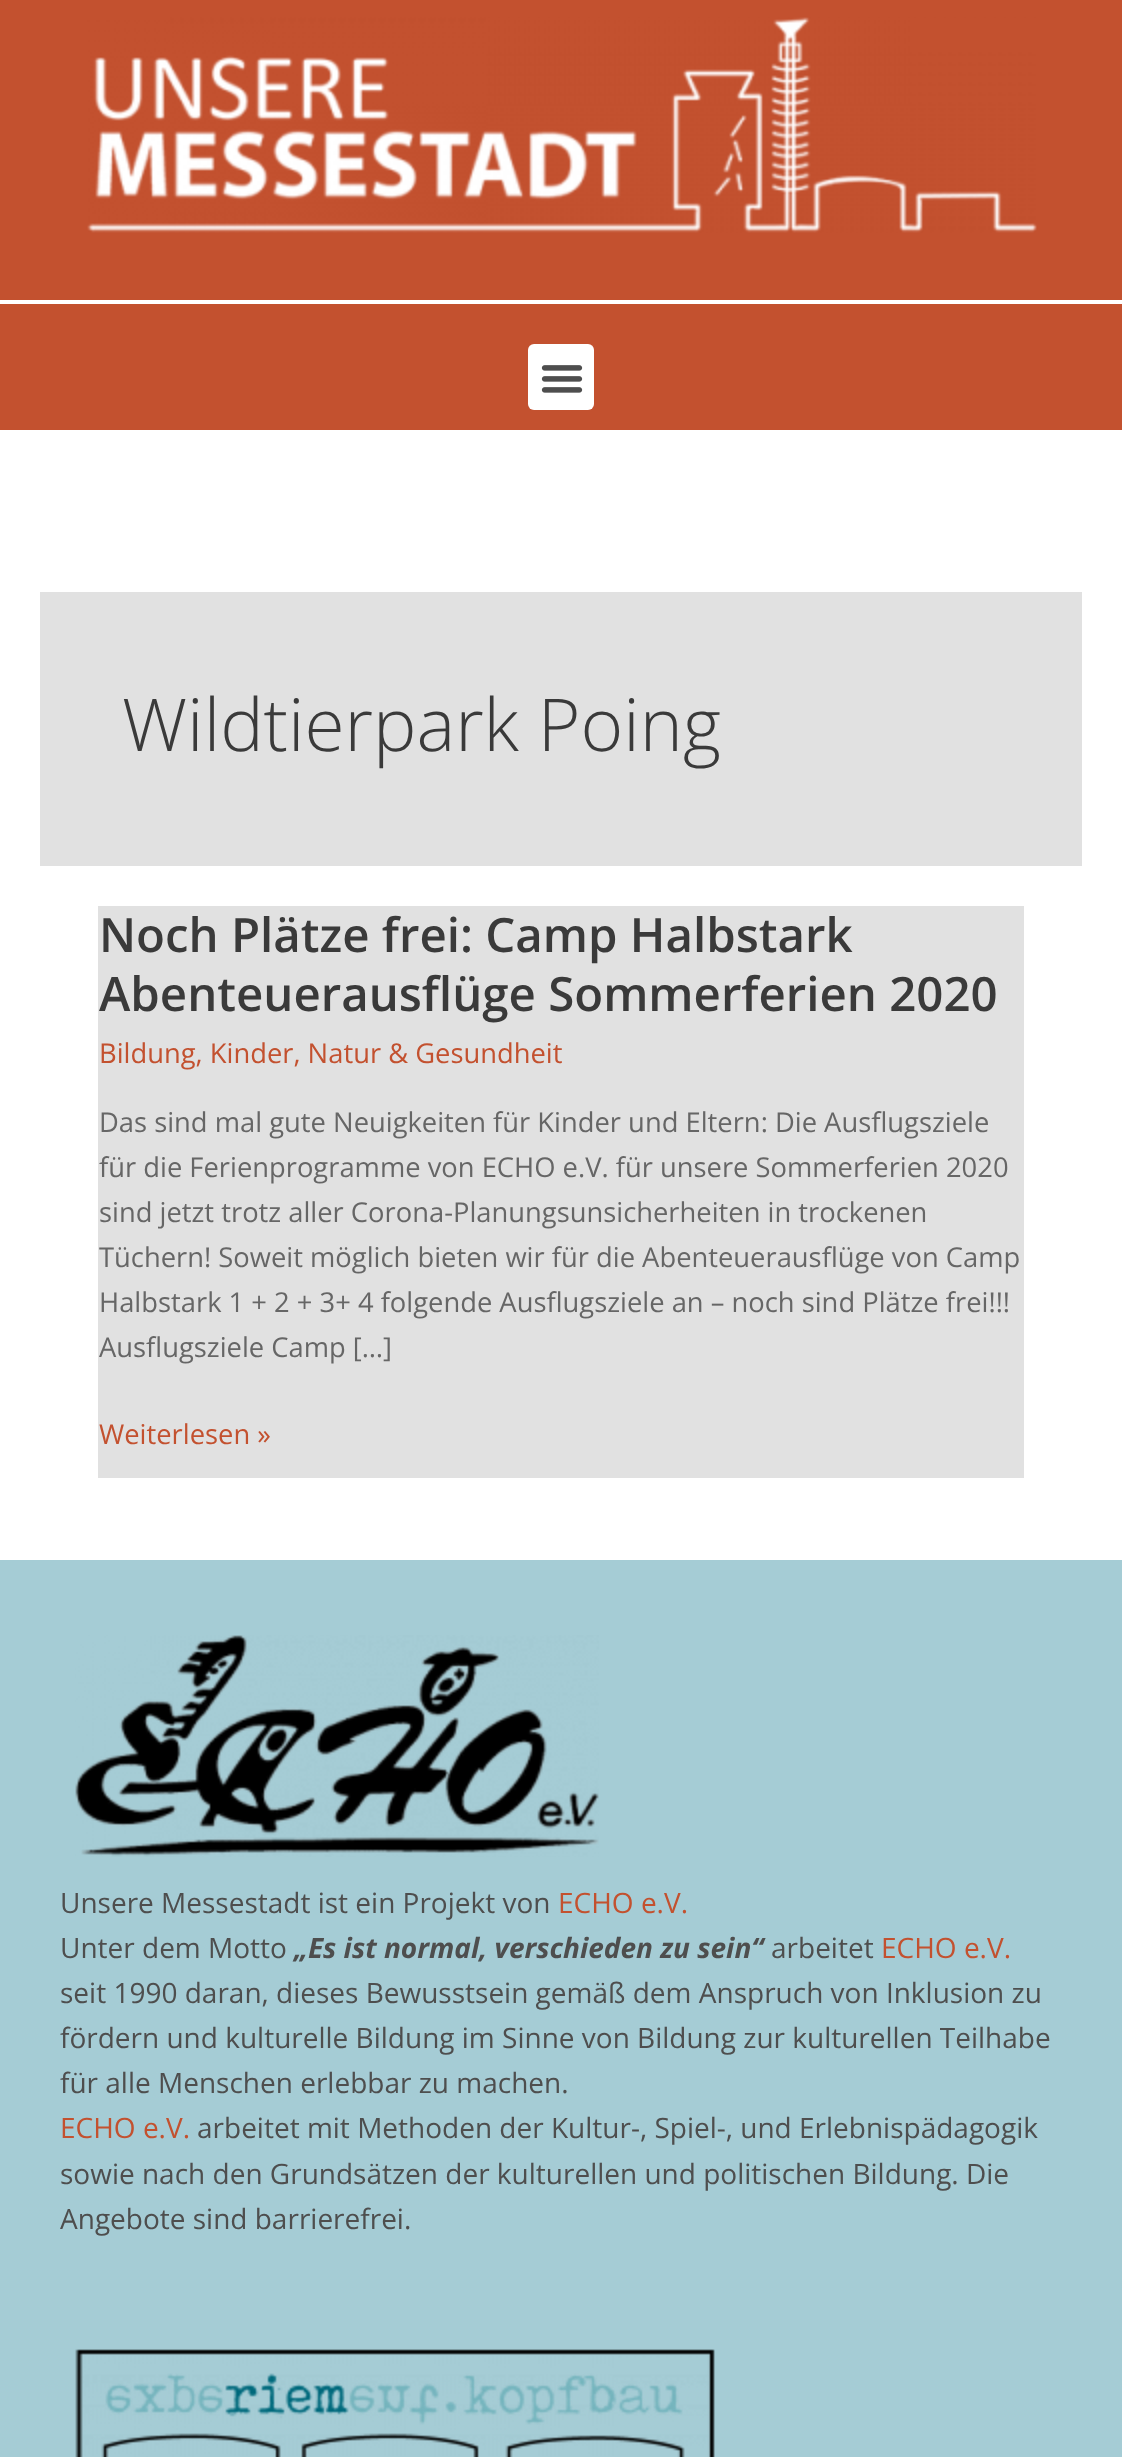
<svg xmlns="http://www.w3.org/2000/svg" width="1122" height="2457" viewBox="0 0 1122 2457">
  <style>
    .t1 { font: 300 73px Open Sans; fill: #3a3a3a; }
    .t2 { font: 600 47.4px Open Sans; fill: #3a3a3a; }
    .t3 { font: 27.35px Open Sans; fill: #c3512f; }
    .t4 { font: 27.35px Open Sans; fill: #666; }
    .t5 { font: 28px Open Sans; fill: #4e4e4e; }
    .t6 { font: 28px Open Sans; fill: #c3512f; }
    .t7 { font: italic bold 28px Open Sans; fill: #4e4e4e; }
  </style>
  <rect width="100%" height="100%" fill="#fff"/>
  <rect x="0" y="0" width="1122" height="430" fill="#c3512f"/>
  <image x="87" y="17" width="950" height="216" href="images/1.png"/>
  <rect x="0" y="300" width="1122" height="4" fill="#fff"/>
  <rect x="528" y="344" width="66" height="66" rx="6" fill="#fff"/>
  <image x="541" y="365" width="42" height="28" href="images/2.png"/>
  <rect x="40" y="592" width="1042" height="274" fill="#e1e1e1"/>
  <text x="122" y="751" class="t1">Wildtierpark Poing</text>
  <rect x="98" y="906" width="926" height="572" fill="#e1e1e1"/>
  <text x="99" y="952" class="t2">Noch Plätze frei: Camp Halbstark</text>
  <text x="99" y="1011" class="t2">Abenteuerausflüge Sommerferien 2020</text>
  <text x="99" y="1063" class="t3">Bildung, Kinder, Natur &amp; Gesundheit</text>
  <text x="99" y="1132" class="t4">Das sind mal gute Neuigkeiten für Kinder und Eltern: Die Ausflugsziele</text>
  <text x="99" y="1177" class="t4">für die Ferienprogramme von ECHO e.V. für unsere Sommerferien 2020</text>
  <text x="99" y="1222" class="t4">sind jetzt trotz aller Corona-Planungsunsicherheiten in trockenen</text>
  <text x="99" y="1267" class="t4">Tüchern! Soweit möglich bieten wir für die Abenteuerausflüge von Camp</text>
  <text x="99" y="1312" class="t4">Halbstark 1 + 2 + 3+ 4 folgende Ausflugsziele an – noch sind Plätze frei!!!</text>
  <text x="99" y="1357" class="t4">Ausflugsziele Camp […]</text>
  <text x="99" y="1444" class="t3">Weiterlesen »</text>
  <rect x="0" y="1560" width="1122" height="897" fill="#a5ccd5"/>
  <image x="75" y="1635" width="524" height="222" href="images/3.png"/>
  <text x="60" y="1913" class="t5">Unsere Messestadt ist ein Projekt von</text>
  <text x="558" y="1913" class="t6">ECHO e.V.</text>
  <text x="60" y="1958" class="t5">Unter dem Motto</text>
  <text x="294" y="1958" class="t7">„Es ist normal, verschieden zu sein“</text>
  <text x="771" y="1958" class="t5">arbeitet</text>
  <text x="881" y="1958" class="t6">ECHO e.V.</text>
  <text x="60" y="2003" class="t5">seit 1990 daran, dieses Bewusstsein gemäß dem Anspruch von Inklusion zu</text>
  <text x="60" y="2048" class="t5">fördern und kulturelle Bildung im Sinne von Bildung zur kulturellen Teilhabe</text>
  <text x="60" y="2093" class="t5">für alle Menschen erlebbar zu machen.</text>
  <text x="60" y="2138" class="t6">ECHO e.V.</text>
  <text x="197" y="2138" class="t5">arbeitet mit Methoden der Kultur-, Spiel-, und Erlebnispädagogik</text>
  <text x="60" y="2184" class="t5">sowie nach den Grundsätzen der kulturellen und politischen Bildung. Die</text>
  <text x="60" y="2229" class="t5">Angebote sind barrierefrei.</text>
  <image x="75" y="2349" width="640" height="108" href="images/4.png"/>
</svg>
